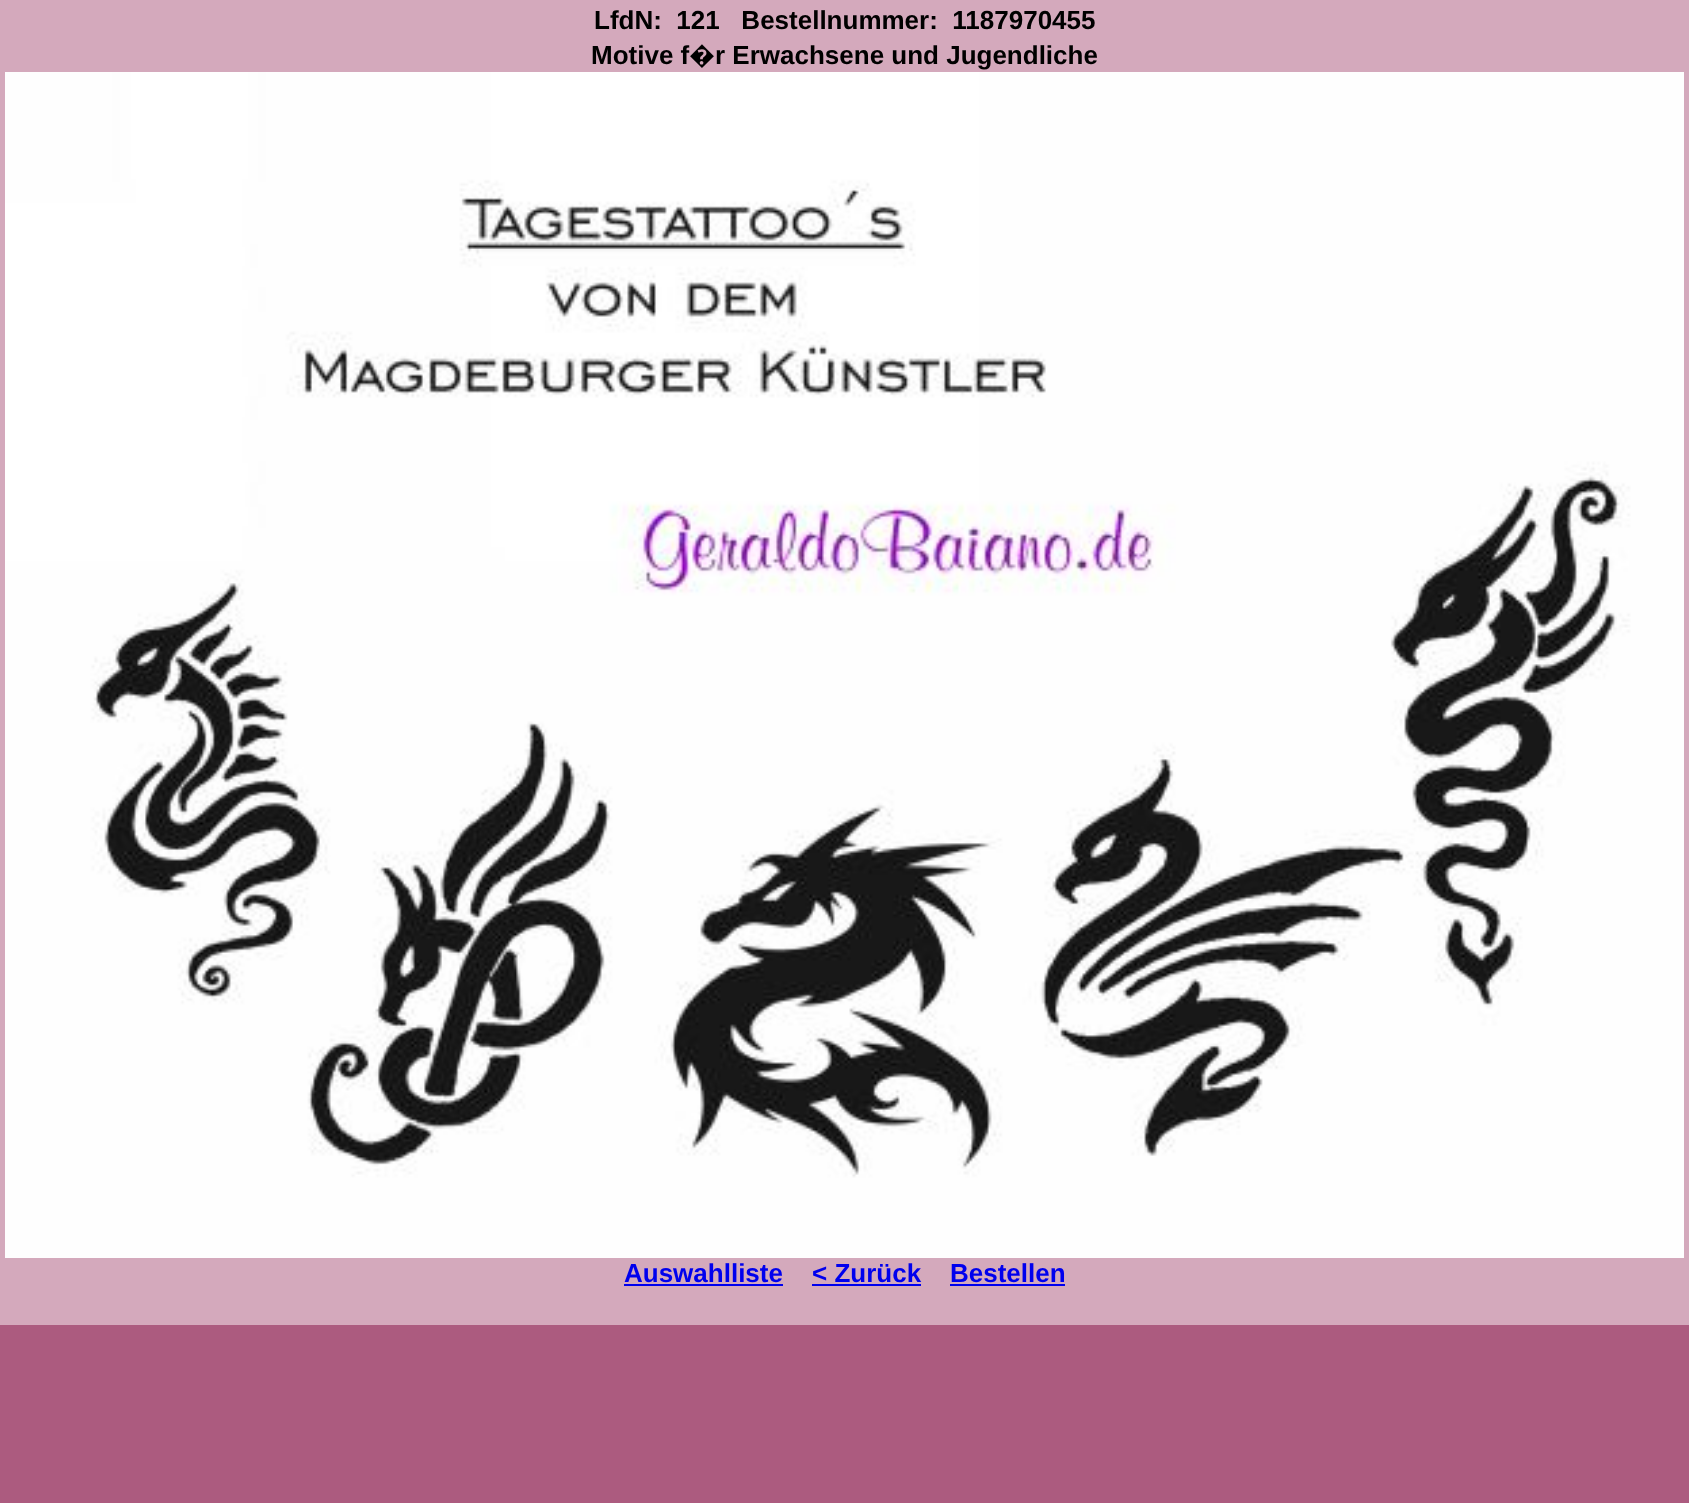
<svg xmlns="http://www.w3.org/2000/svg" width="1689" height="1503" viewBox="0 0 1689 1503">
  <style>
    .t1 { font: bold 26px Liberation Sans; fill: #000; }
    .t2 { font: bold 26px Noto Sans; fill: #000; }
    .t3 { font: bold 26px Liberation Sans; fill: #00e; }
  </style>
  <rect width="100%" height="100%" fill="#ac5b7f"/>
  <rect x="0" y="0" width="1689" height="1325" fill="#d4a9bc"/>
  <text x="594" y="29" class="t1" xml:space="preserve">LfdN:  121   Bestellnummer:  1187970455</text>
  <text x="591" y="64" class="t1">Motive f</text>
  <text x="689" y="64" class="t2">�</text>
  <text x="715" y="64" class="t1">r Erwachsene und Jugendliche</text>
  <image x="5" y="72" width="1679" height="1186" href="images/1.png"/>
  <text x="624" y="1282" class="t3">Auswahlliste</text>
  <rect x="624" y="1284" width="159" height="2" fill="#00e"/>
  <text x="812" y="1282" class="t3">&lt; Zurück</text>
  <rect x="812" y="1284" width="109" height="2" fill="#00e"/>
  <text x="950" y="1282" class="t3">Bestellen</text>
  <rect x="950" y="1284" width="115" height="2" fill="#00e"/>
</svg>
